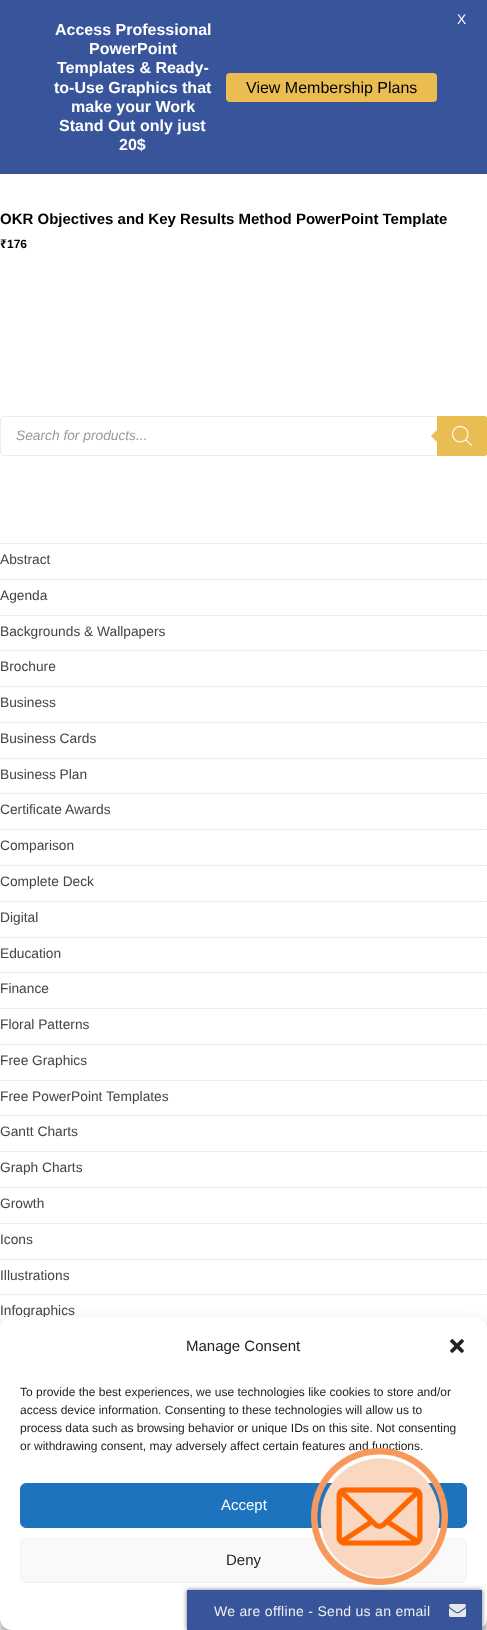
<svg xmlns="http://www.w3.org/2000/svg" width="487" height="1630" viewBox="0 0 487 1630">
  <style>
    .t1 { font: 13.75px Liberation Sans; fill: #fff; }
    .t2 { font: bold 16px Liberation Sans; fill: #fff; }
    .t3 { font: 16px Liberation Sans; fill: #000; }
    .t4 { font: bold 15px Liberation Sans; fill: #000; }
    .t5 { font: bold 12px Noto Sans; fill: #000; }
    .t6 { font: bold 12px Liberation Sans; fill: #000; }
    .t7 { font: italic 13.75px Liberation Sans; fill: #999; }
    .t8 { font: 13.75px Liberation Sans; fill: #434343; }
    .t9 { font: 15px Liberation Sans; fill: #222; }
    .t10 { font: 12px Liberation Sans; fill: #222; }
    .t11 { font: 15px Liberation Sans; fill: #fff; }
    .t12 { font: 14px Liberation Sans; letter-spacing: 0.3px; fill: #f1f1f1; }
  </style>
  <rect width="100%" height="100%" fill="#fff"/>
  <rect x="0" y="0" width="487" height="174" fill="#38549b"/>
  <text x="457" y="24" class="t1">X</text>
  <text x="55" y="35" class="t2">Access Professional</text>
  <text x="89" y="54" class="t2">PowerPoint</text>
  <text x="57" y="73" class="t2">Templates &amp; Ready-</text>
  <text x="54" y="93" class="t2">to-Use Graphics that</text>
  <text x="71" y="112" class="t2">make your Work</text>
  <text x="59" y="131" class="t2">Stand Out only just</text>
  <text x="119" y="150" class="t2">20$</text>
  <rect x="226" y="73" width="211" height="29" rx="4" fill="#eabd53"/>
  <text x="246" y="93" class="t3">View Membership Plans</text>
  <text x="0" y="224" class="t4">OKR Objectives and Key Results Method PowerPoint Template</text>
  <text x="0" y="248" class="t5">₹</text>
  <text x="7" y="248" class="t6">176</text>
  <rect x="0.5" y="416.5" width="486" height="39" rx="2.5" fill="none" stroke="#ededed"/>
  <text x="16" y="440" class="t7">Search for products...</text>
  <path d="M437 416H485C486 416 487 417 487 418V454C487 455 486 456 485 456H437Z" fill="#eabd53"/>
  <path d="M439 428V444L431 436Z" fill="#eabd53"/>
  <image x="452" y="426" width="20" height="20" href="images/1.png"/>
  <path d="M0 543.5H487" fill="none" stroke="#ddd" stroke-dasharray="1 1"/>
  <text x="0" y="564" class="t8">Abstract</text>
  <path d="M0 579.5H487" fill="none" stroke="#ddd" stroke-dasharray="1 1"/>
  <text x="0" y="600" class="t8">Agenda</text>
  <path d="M0 615.5H487" fill="none" stroke="#ddd" stroke-dasharray="1 1"/>
  <text x="0" y="636" class="t8">Backgrounds &amp; Wallpapers</text>
  <path d="M0 650.5H487" fill="none" stroke="#ddd" stroke-dasharray="1 1"/>
  <text x="0" y="671" class="t8">Brochure</text>
  <path d="M0 686.5H487" fill="none" stroke="#ddd" stroke-dasharray="1 1"/>
  <text x="0" y="707" class="t8">Business</text>
  <path d="M0 722.5H487" fill="none" stroke="#ddd" stroke-dasharray="1 1"/>
  <text x="0" y="743" class="t8">Business Cards</text>
  <path d="M0 758.5H487" fill="none" stroke="#ddd" stroke-dasharray="1 1"/>
  <text x="0" y="779" class="t8">Business Plan</text>
  <path d="M0 793.5H487" fill="none" stroke="#ddd" stroke-dasharray="1 1"/>
  <text x="0" y="814" class="t8">Certificate Awards</text>
  <path d="M0 829.5H487" fill="none" stroke="#ddd" stroke-dasharray="1 1"/>
  <text x="0" y="850" class="t8">Comparison</text>
  <path d="M0 865.5H487" fill="none" stroke="#ddd" stroke-dasharray="1 1"/>
  <text x="0" y="886" class="t8">Complete Deck</text>
  <path d="M0 901.5H487" fill="none" stroke="#ddd" stroke-dasharray="1 1"/>
  <text x="0" y="922" class="t8">Digital</text>
  <path d="M0 937.5H487" fill="none" stroke="#ddd" stroke-dasharray="1 1"/>
  <text x="0" y="958" class="t8">Education</text>
  <path d="M0 972.5H487" fill="none" stroke="#ddd" stroke-dasharray="1 1"/>
  <text x="0" y="993" class="t8">Finance</text>
  <path d="M0 1008.5H487" fill="none" stroke="#ddd" stroke-dasharray="1 1"/>
  <text x="0" y="1029" class="t8">Floral Patterns</text>
  <path d="M0 1044.5H487" fill="none" stroke="#ddd" stroke-dasharray="1 1"/>
  <text x="0" y="1065" class="t8">Free Graphics</text>
  <path d="M0 1080.5H487" fill="none" stroke="#ddd" stroke-dasharray="1 1"/>
  <text x="0" y="1101" class="t8">Free PowerPoint Templates</text>
  <path d="M0 1115.5H487" fill="none" stroke="#ddd" stroke-dasharray="1 1"/>
  <text x="0" y="1136" class="t8">Gantt Charts</text>
  <path d="M0 1151.5H487" fill="none" stroke="#ddd" stroke-dasharray="1 1"/>
  <text x="0" y="1172" class="t8">Graph Charts</text>
  <path d="M0 1187.5H487" fill="none" stroke="#ddd" stroke-dasharray="1 1"/>
  <text x="0" y="1208" class="t8">Growth</text>
  <path d="M0 1223.5H487" fill="none" stroke="#ddd" stroke-dasharray="1 1"/>
  <text x="0" y="1244" class="t8">Icons</text>
  <path d="M0 1259.5H487" fill="none" stroke="#ddd" stroke-dasharray="1 1"/>
  <text x="0" y="1280" class="t8">Illustrations</text>
  <path d="M0 1294.5H487" fill="none" stroke="#ddd" stroke-dasharray="1 1"/>
  <text x="0" y="1315" class="t8">Infographics</text>
  <rect x="0" y="1323" width="487" height="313" rx="12" fill="#0000003b" filter="blur(3px)"/>
  <rect x="0" y="1327" width="487" height="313" rx="12" fill="#00000030" filter="blur(10px)"/>
  <rect x="0" y="1317" width="487" height="313" rx="12" fill="#fff"/>
  <text x="186" y="1351" class="t9">Manage Consent</text>
  <image x="450" y="1339" width="14" height="14" href="images/2.png"/>
  <text x="20" y="1396" class="t10">To provide the best experiences, we use technologies like cookies to store and/or</text>
  <text x="20" y="1414" class="t10">access device information. Consenting to these technologies will allow us to</text>
  <text x="20" y="1432" class="t10">process data such as browsing behavior or unique IDs on this site. Not consenting</text>
  <text x="20" y="1450" class="t10">or withdrawing consent, may adversely affect certain features and functions.</text>
  <rect x="20.5" y="1483.5" width="446" height="44" rx="5.5" fill="#1e73be" stroke="#1e73be"/>
  <text x="221" y="1510" class="t11">Accept</text>
  <rect x="20.5" y="1538.5" width="446" height="44" rx="5.5" fill="#f9f9f9" stroke="#f2f2f2"/>
  <text x="226" y="1565" class="t9">Deny</text>
  <image x="311" y="1448" width="137" height="137" href="images/3.png"/>
  <rect x="187" y="1590" width="295" height="40" fill="#777" filter="blur(2.5px)"/>
  <rect x="187" y="1590" width="295" height="40" fill="#38549b"/>
  <text x="214" y="1616" class="t12">We are offline - Send us an email</text>
  <image x="449" y="1604" width="17" height="13" href="images/4.png"/>
</svg>
